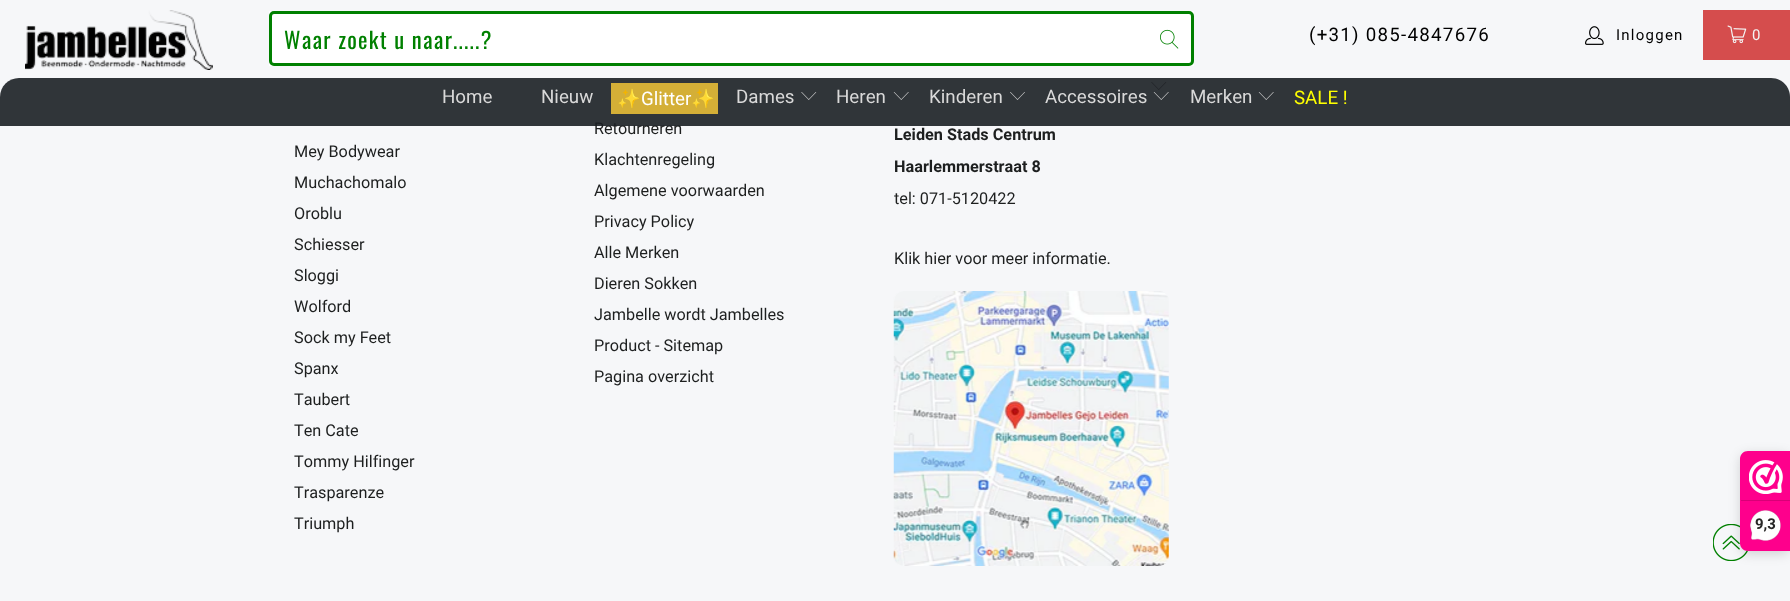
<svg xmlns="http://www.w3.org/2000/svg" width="1790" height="601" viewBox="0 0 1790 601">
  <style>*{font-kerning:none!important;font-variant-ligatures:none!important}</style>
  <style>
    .t1 { font: 22.5px Oswald; letter-spacing: 1.25px; fill: #008000; }
    .t2 { font: 18.75px Roboto; letter-spacing: 1.25px; fill: #000; }
    .t3 { font: 15px Roboto; letter-spacing: 1.25px; fill: #000; }
    .t4 { font: 15px Roboto; letter-spacing: 1.25px; fill: #f4f4f4; }
    .t5 { font: 16.25px Roboto; fill: #1d1f1f; }
    .t6 { font: 18.75px Roboto; fill: #d9d9d9; }
    .t7 { font: 18.75px Noto Color Emoji; fill: #fff; }
    .t8 { font: 18.75px Roboto; fill: #fff; }
    .t9 { font: 18.75px Roboto; fill: #ff0; }
    .t10 { font: bold 16.25px Roboto; fill: #1d1f1f; }
    .t11 { font: bold 15px Roboto; fill: #272626; }
  </style>
  <rect width="100%" height="100%" fill="#f6f7f9"/>
  <image x="25" y="10" width="188" height="60" href="images/1.png"/>
  <rect x="269" y="11" width="925" height="55" fill="#fff"/>
  <rect x="270.5" y="12.5" width="922" height="52" rx="3.5" fill="none" stroke="#008000" stroke-width="3"/>
  <text x="284" y="49" class="t1">Waar zoekt u naar.....?</text>
  <image x="1160" y="29" width="19" height="20" href="images/2.png"/>
  <text x="1309" y="41" class="t2">(+31) 085-4847676</text>
  <image x="1585" y="26" width="19" height="19" href="images/3.png"/>
  <text x="1616" y="40" class="t3">Inloggen</text>
  <rect x="1703" y="10" width="87" height="50" fill="#d54d4d"/>
  <image x="1727" y="25" width="20" height="19" href="images/4.png"/>
  <text x="1752" y="40" class="t4">0</text>
  <text x="594" y="134" class="t5">Retourneren</text>
  <image x="1151" y="82" width="16" height="8" href="images/8.png"/>
  <path d="M19 78H1771C1781.5 78 1790 86.5 1790 97V126H0V97C0 86.5 8.5 78 19 78Z" fill="#1b1f23e6"/>
  <text x="442" y="103" class="t6">Home</text>
  <text x="541" y="103" class="t6">Nieuw</text>
  <rect x="611" y="83" width="107" height="31" fill="#d4af37"/>
  <text x="617" y="105" class="t7">✨</text>
  <text x="641" y="105" class="t8">Glitter</text>
  <text x="691" y="105" class="t7">✨</text>
  <text x="736" y="103" class="t6">Dames</text>
  <image x="801" y="92" width="16" height="8" href="images/5.png"/>
  <text x="836" y="103" class="t6">Heren</text>
  <image x="893" y="92" width="16" height="8" href="images/6.png"/>
  <text x="929" y="103" class="t6">Kinderen</text>
  <image x="1010" y="92" width="15" height="8" href="images/7.png"/>
  <text x="1045" y="103" class="t6">Accessoires</text>
  <image x="1153" y="92" width="16" height="8" href="images/6.png"/>
  <text x="1190" y="103" class="t6">Merken</text>
  <image x="1258" y="92" width="16" height="8" href="images/6.png"/>
  <text x="1294" y="104" class="t9">SALE !</text>
  <text x="294" y="157" class="t5">Mey Bodywear</text>
  <text x="294" y="188" class="t5">Muchachomalo</text>
  <text x="294" y="219" class="t5">Oroblu</text>
  <text x="294" y="250" class="t5">Schiesser</text>
  <text x="294" y="281" class="t5">Sloggi</text>
  <text x="294" y="312" class="t5">Wolford</text>
  <text x="294" y="343" class="t5">Sock my Feet</text>
  <text x="294" y="374" class="t5">Spanx</text>
  <text x="294" y="405" class="t5">Taubert</text>
  <text x="294" y="436" class="t5">Ten Cate</text>
  <text x="294" y="467" class="t5">Tommy Hilfinger</text>
  <text x="294" y="498" class="t5">Trasparenze</text>
  <text x="294" y="529" class="t5">Triumph</text>
  <text x="594" y="165" class="t5">Klachtenregeling</text>
  <text x="594" y="196" class="t5">Algemene voorwaarden</text>
  <text x="594" y="227" class="t5">Privacy Policy</text>
  <text x="594" y="258" class="t5">Alle Merken</text>
  <text x="594" y="289" class="t5">Dieren Sokken</text>
  <text x="594" y="320" class="t5">Jambelle wordt Jambelles</text>
  <text x="594" y="351" class="t5">Product - Sitemap</text>
  <text x="594" y="382" class="t5">Pagina overzicht</text>
  <text x="894" y="140" class="t10">Leiden Stads Centrum</text>
  <text x="894" y="172" class="t10">Haarlemmerstraat 8</text>
  <text x="894" y="204" class="t5">tel: 071-5120422</text>
  <text x="894" y="264" class="t5">Klik hier voor meer informatie.</text>
  <image x="893" y="291" width="276" height="275" href="images/9.png"/>
  <image x="1713" y="524" width="35" height="37" href="images/10.png"/>
  <rect x="1740" y="454" width="50" height="100" rx="8" fill="#00000026" filter="blur(6px)"/>
  <path d="M1748 451H1790V551H1748C1743.5 551 1740 547.5 1740 543V459C1740 454.5 1743.5 451 1748 451Z" fill="#fe008c"/>
  <image x="1749" y="460" width="34" height="34" href="images/11.png"/>
  <rect x="1741" y="500" width="49" height="1" fill="#d80077"/>
  <image x="1750" y="510" width="31" height="31" href="images/12.png"/>
  <text x="1755" y="529" class="t11">9,3</text>
</svg>
